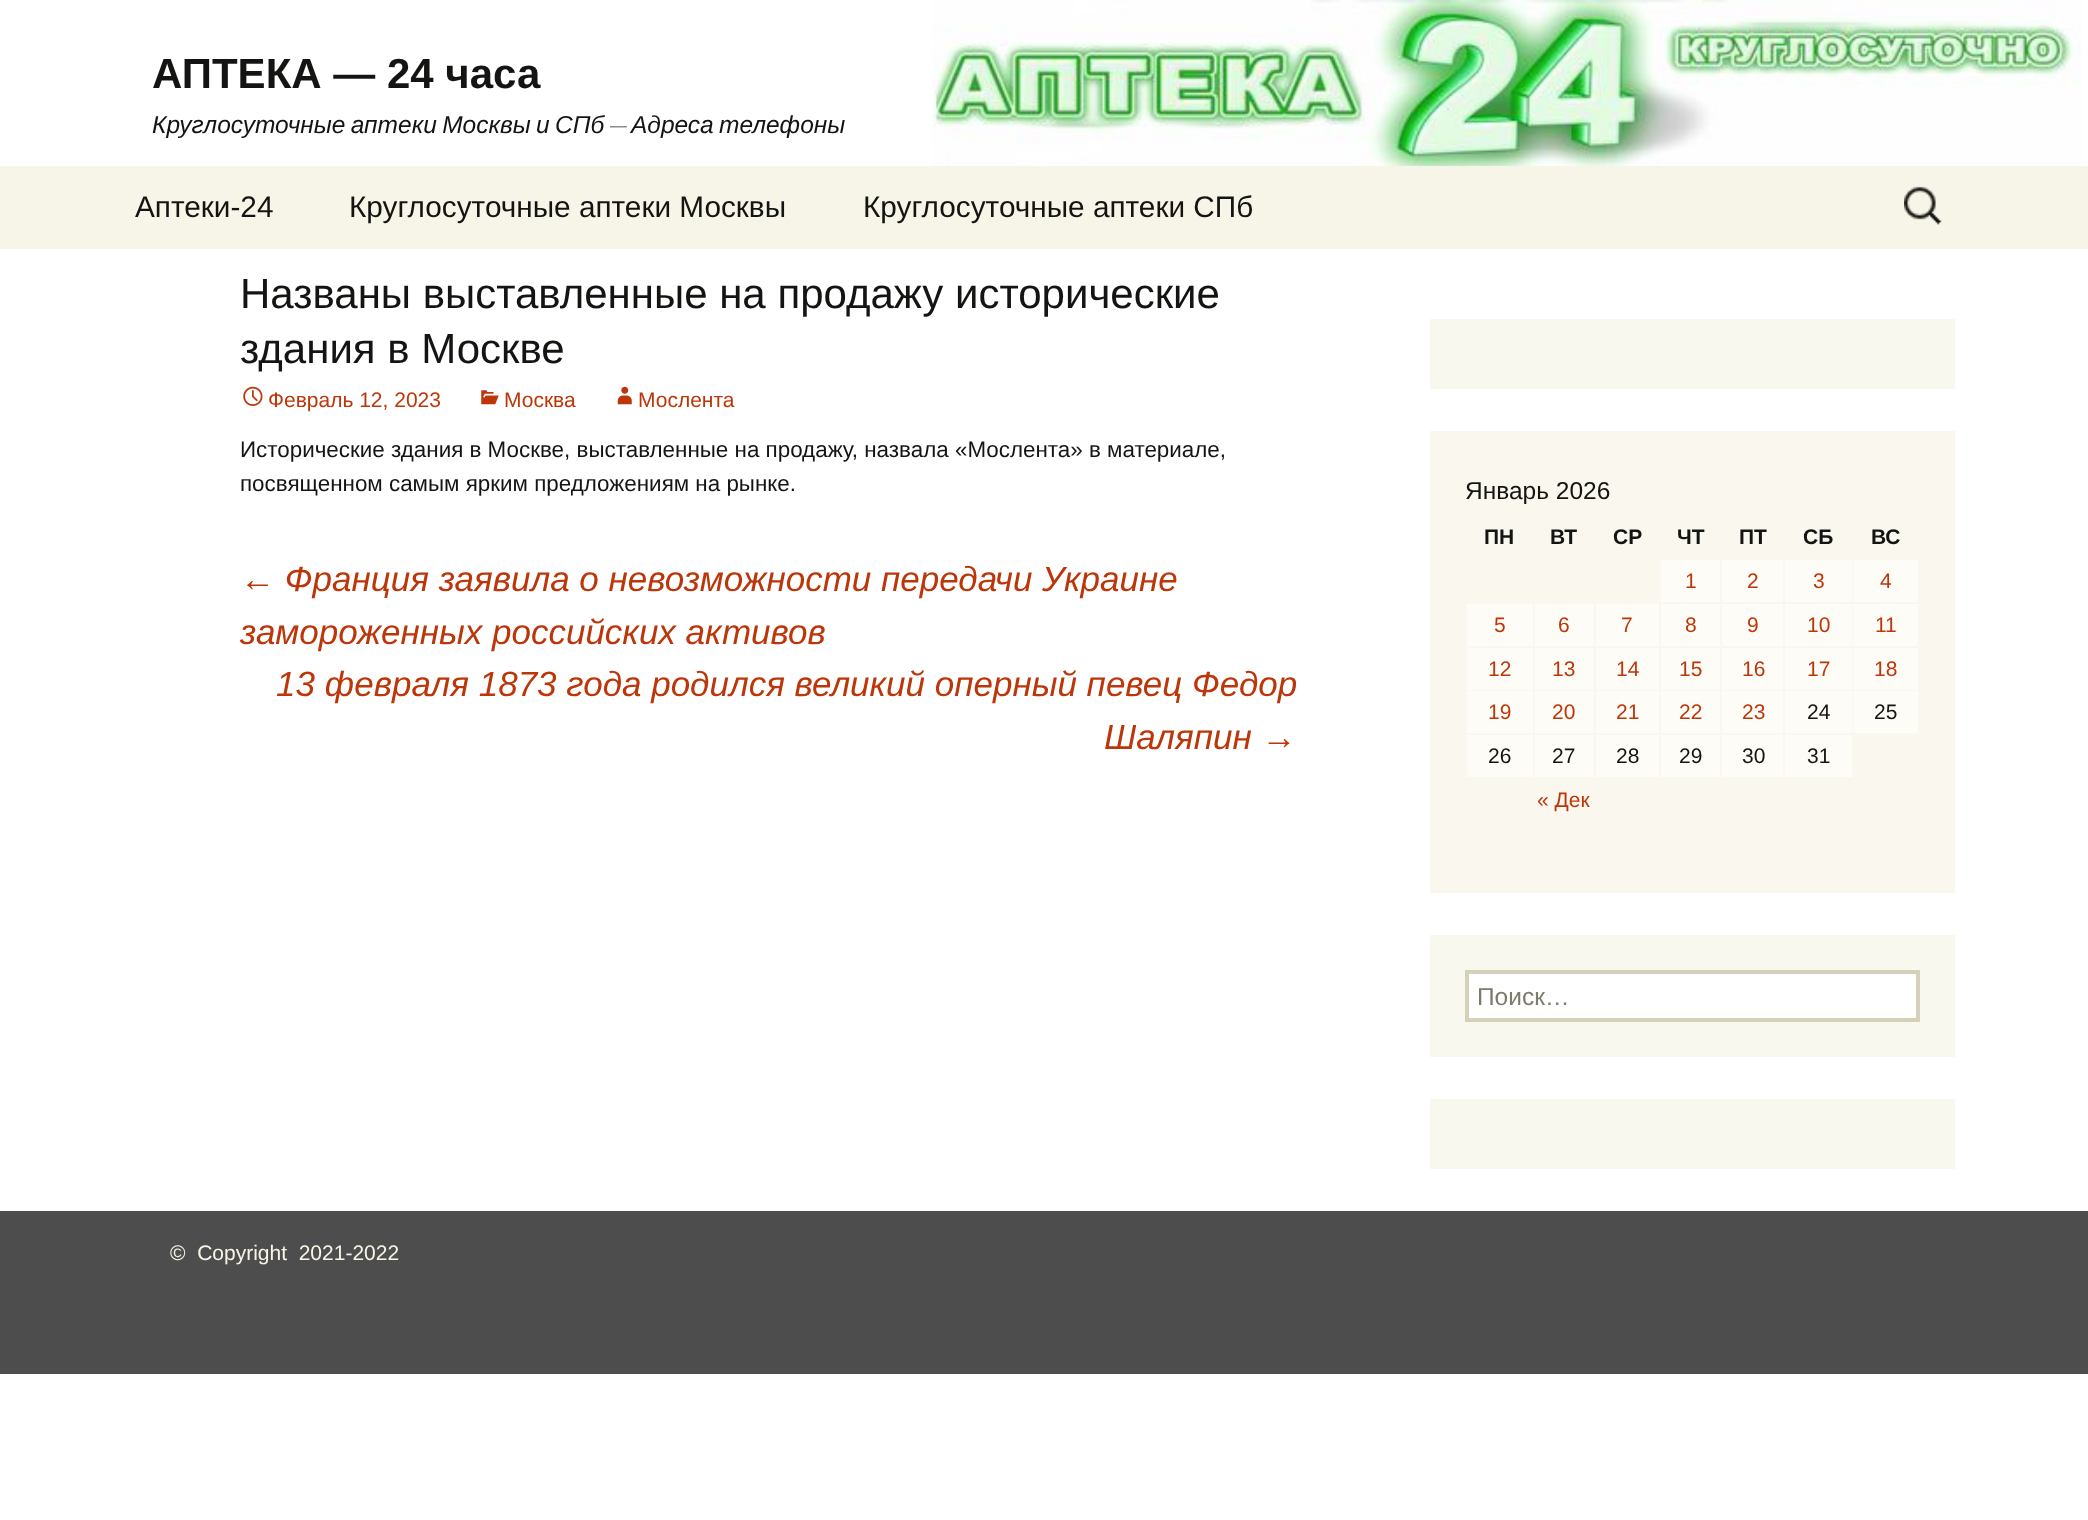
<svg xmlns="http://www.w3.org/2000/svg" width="2088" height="1520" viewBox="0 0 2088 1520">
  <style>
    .t1 { font: bold 42px Liberation Sans; fill: #141412; }
    .t2 { font: italic 24.5px Liberation Sans; fill: #141412; }
    .t3 { font: italic 300 24.5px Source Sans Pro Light; fill: #141412; }
    .t4 { font: 29.75px Liberation Sans; fill: #141412; }
    .t5 { font: 42px Liberation Sans; fill: #141412; }
    .t6 { font: 21px Liberation Sans; fill: #bc360a; }
    .t7 { font: 22.4px Liberation Sans; fill: #141412; }
    .t8 { font: italic 35px Liberation Sans; fill: #bc360a; }
    .t9 { font: 24.5px Liberation Sans; fill: #141412; }
    .t10 { font: bold 21px Liberation Sans; fill: #141412; }
    .t11 { font: 21px Liberation Sans; fill: #141412; }
    .t12 { font: 24.5px Liberation Sans; fill: #7d7b6d; }
    .t13 { font: 21px Liberation Sans; fill: #f7f5e7; }
  </style>
  <rect width="100%" height="100%" fill="#fff"/>
  <image x="932" y="0" width="1150" height="166" href="images/1.png"/>
  <text x="152" y="88" class="t1">АПТЕКА — 24 часа</text>
  <text x="152" y="133" word-spacing="-1.5" class="t2">Круглосуточные аптеки Москвы и СПб</text>
  <text x="609" y="133" class="t3">—</text>
  <text x="631" y="133" word-spacing="-1.5" class="t2">Адреса телефоны</text>
  <rect x="0" y="166" width="2088" height="83" fill="#f7f5e7"/>
  <text x="135" y="217" class="t4">Аптеки-24</text>
  <text x="349" y="217" class="t4">Круглосуточные аптеки Москвы</text>
  <text x="863" y="217" class="t4">Круглосуточные аптеки СПб</text>
  <image x="1904" y="186" width="38" height="39" href="images/2.png"/>
  <text x="240" y="308" class="t5">Названы выставленные на продажу исторические</text>
  <text x="240" y="363" class="t5">здания в Москве</text>
  <image x="243" y="386" width="20" height="20" href="images/3.png"/>
  <text x="268" y="407" class="t6">Февраль 12, 2023</text>
  <image x="481" y="390" width="18" height="15" href="images/4.png"/>
  <text x="504" y="407" class="t6">Москва</text>
  <image x="617" y="386" width="15" height="19" href="images/5.png"/>
  <text x="638" y="407" class="t6">Мослента</text>
  <text x="240" y="457" class="t7">Исторические здания в Москве, выставленные на продажу, назвала «Мослента» в материале,</text>
  <text x="240" y="491" class="t7">посвященном самым ярким предложениям на рынке.</text>
  <text x="240" y="591" class="t8">← Франция заявила о невозможности передачи Украине</text>
  <text x="240" y="644" class="t8">замороженных российских активов</text>
  <text x="276" y="696" class="t8">13 февраля 1873 года родился великий оперный певец Федор</text>
  <text x="1104" y="749" class="t8">Шаляпин →</text>
  <rect x="1430" y="319" width="525" height="70" fill="#f9f8ee"/>
  <rect x="1430" y="431" width="525" height="462" fill="#faf8ee"/>
  <text x="1465" y="499" class="t9">Январь 2026</text>
  <text x="1484" y="544" class="t10">ПН</text>
  <text x="1550" y="544" class="t10">ВТ</text>
  <text x="1613" y="544" class="t10">СР</text>
  <text x="1677" y="544" class="t10">ЧТ</text>
  <text x="1739" y="544" class="t10">ПТ</text>
  <text x="1803" y="544" class="t10">СБ</text>
  <text x="1871" y="544" class="t10">ВС</text>
  <rect x="1661" y="560" width="59" height="42" fill="#fdfcf7"/>
  <text x="1685" y="588" class="t6">1</text>
  <rect x="1722" y="560" width="61" height="42" fill="#fdfcf7"/>
  <text x="1747" y="588" class="t6">2</text>
  <rect x="1785" y="560" width="67" height="42" fill="#fdfcf7"/>
  <text x="1813" y="588" class="t6">3</text>
  <rect x="1853" y="560" width="65" height="42" fill="#fdfcf7"/>
  <text x="1880" y="588" class="t6">4</text>
  <rect x="1467" y="604" width="66" height="42" fill="#fdfcf7"/>
  <text x="1494" y="632" class="t6">5</text>
  <rect x="1535" y="604" width="59" height="42" fill="#fdfcf7"/>
  <text x="1558" y="632" class="t6">6</text>
  <rect x="1596" y="604" width="63" height="42" fill="#fdfcf7"/>
  <text x="1621" y="632" class="t6">7</text>
  <rect x="1661" y="604" width="59" height="42" fill="#fdfcf7"/>
  <text x="1685" y="632" class="t6">8</text>
  <rect x="1722" y="604" width="61" height="42" fill="#fdfcf7"/>
  <text x="1747" y="632" class="t6">9</text>
  <rect x="1785" y="604" width="67" height="42" fill="#fdfcf7"/>
  <text x="1807" y="632" class="t6">10</text>
  <rect x="1853" y="604" width="65" height="42" fill="#fdfcf7"/>
  <text x="1875" y="632" class="t6">11</text>
  <rect x="1467" y="648" width="66" height="42" fill="#fdfcf7"/>
  <text x="1488" y="676" class="t6">12</text>
  <rect x="1535" y="648" width="59" height="42" fill="#fdfcf7"/>
  <text x="1552" y="676" class="t6">13</text>
  <rect x="1596" y="648" width="63" height="42" fill="#fdfcf7"/>
  <text x="1616" y="676" class="t6">14</text>
  <rect x="1661" y="648" width="59" height="42" fill="#fdfcf7"/>
  <text x="1679" y="676" class="t6">15</text>
  <rect x="1722" y="648" width="61" height="42" fill="#fdfcf7"/>
  <text x="1742" y="676" class="t6">16</text>
  <rect x="1785" y="648" width="67" height="42" fill="#fdfcf7"/>
  <text x="1807" y="676" class="t6">17</text>
  <rect x="1853" y="648" width="65" height="42" fill="#fdfcf7"/>
  <text x="1874" y="676" class="t6">18</text>
  <rect x="1467" y="691" width="66" height="42" fill="#fdfcf7"/>
  <text x="1488" y="719" class="t6">19</text>
  <rect x="1535" y="691" width="59" height="42" fill="#fdfcf7"/>
  <text x="1552" y="719" class="t6">20</text>
  <rect x="1596" y="691" width="63" height="42" fill="#fdfcf7"/>
  <text x="1616" y="719" class="t6">21</text>
  <rect x="1661" y="691" width="59" height="42" fill="#fdfcf7"/>
  <text x="1679" y="719" class="t6">22</text>
  <rect x="1722" y="691" width="61" height="42" fill="#fdfcf7"/>
  <text x="1742" y="719" class="t6">23</text>
  <rect x="1785" y="691" width="67" height="42" fill="#fdfcf7"/>
  <text x="1807" y="719" class="t11">24</text>
  <rect x="1853" y="691" width="65" height="42" fill="#fdfcf7"/>
  <text x="1874" y="719" class="t11">25</text>
  <rect x="1467" y="735" width="66" height="42" fill="#fdfcf7"/>
  <text x="1488" y="763" class="t11">26</text>
  <rect x="1535" y="735" width="59" height="42" fill="#fdfcf7"/>
  <text x="1552" y="763" class="t11">27</text>
  <rect x="1596" y="735" width="63" height="42" fill="#fdfcf7"/>
  <text x="1616" y="763" class="t11">28</text>
  <rect x="1661" y="735" width="59" height="42" fill="#fdfcf7"/>
  <text x="1679" y="763" class="t11">29</text>
  <rect x="1722" y="735" width="61" height="42" fill="#fdfcf7"/>
  <text x="1742" y="763" class="t11">30</text>
  <rect x="1785" y="735" width="67" height="42" fill="#fdfcf7"/>
  <text x="1807" y="763" class="t11">31</text>
  <text x="1537" y="807" class="t6">« Дек</text>
  <rect x="1430" y="935" width="525" height="122" fill="#f9f8ee"/>
  <rect x="1467" y="972" width="451" height="48" fill="#fff" stroke="#d4d0ba" stroke-width="4"/>
  <text x="1477" y="1005" class="t12">Поиск…</text>
  <rect x="1430" y="1099" width="525" height="70" fill="#f9f8ee"/>
  <rect x="0" y="1211" width="2088" height="163" fill="#4d4d4d"/>
  <text x="170" y="1260" class="t13" xml:space="preserve">©  Copyright  2021-2022</text>
</svg>
